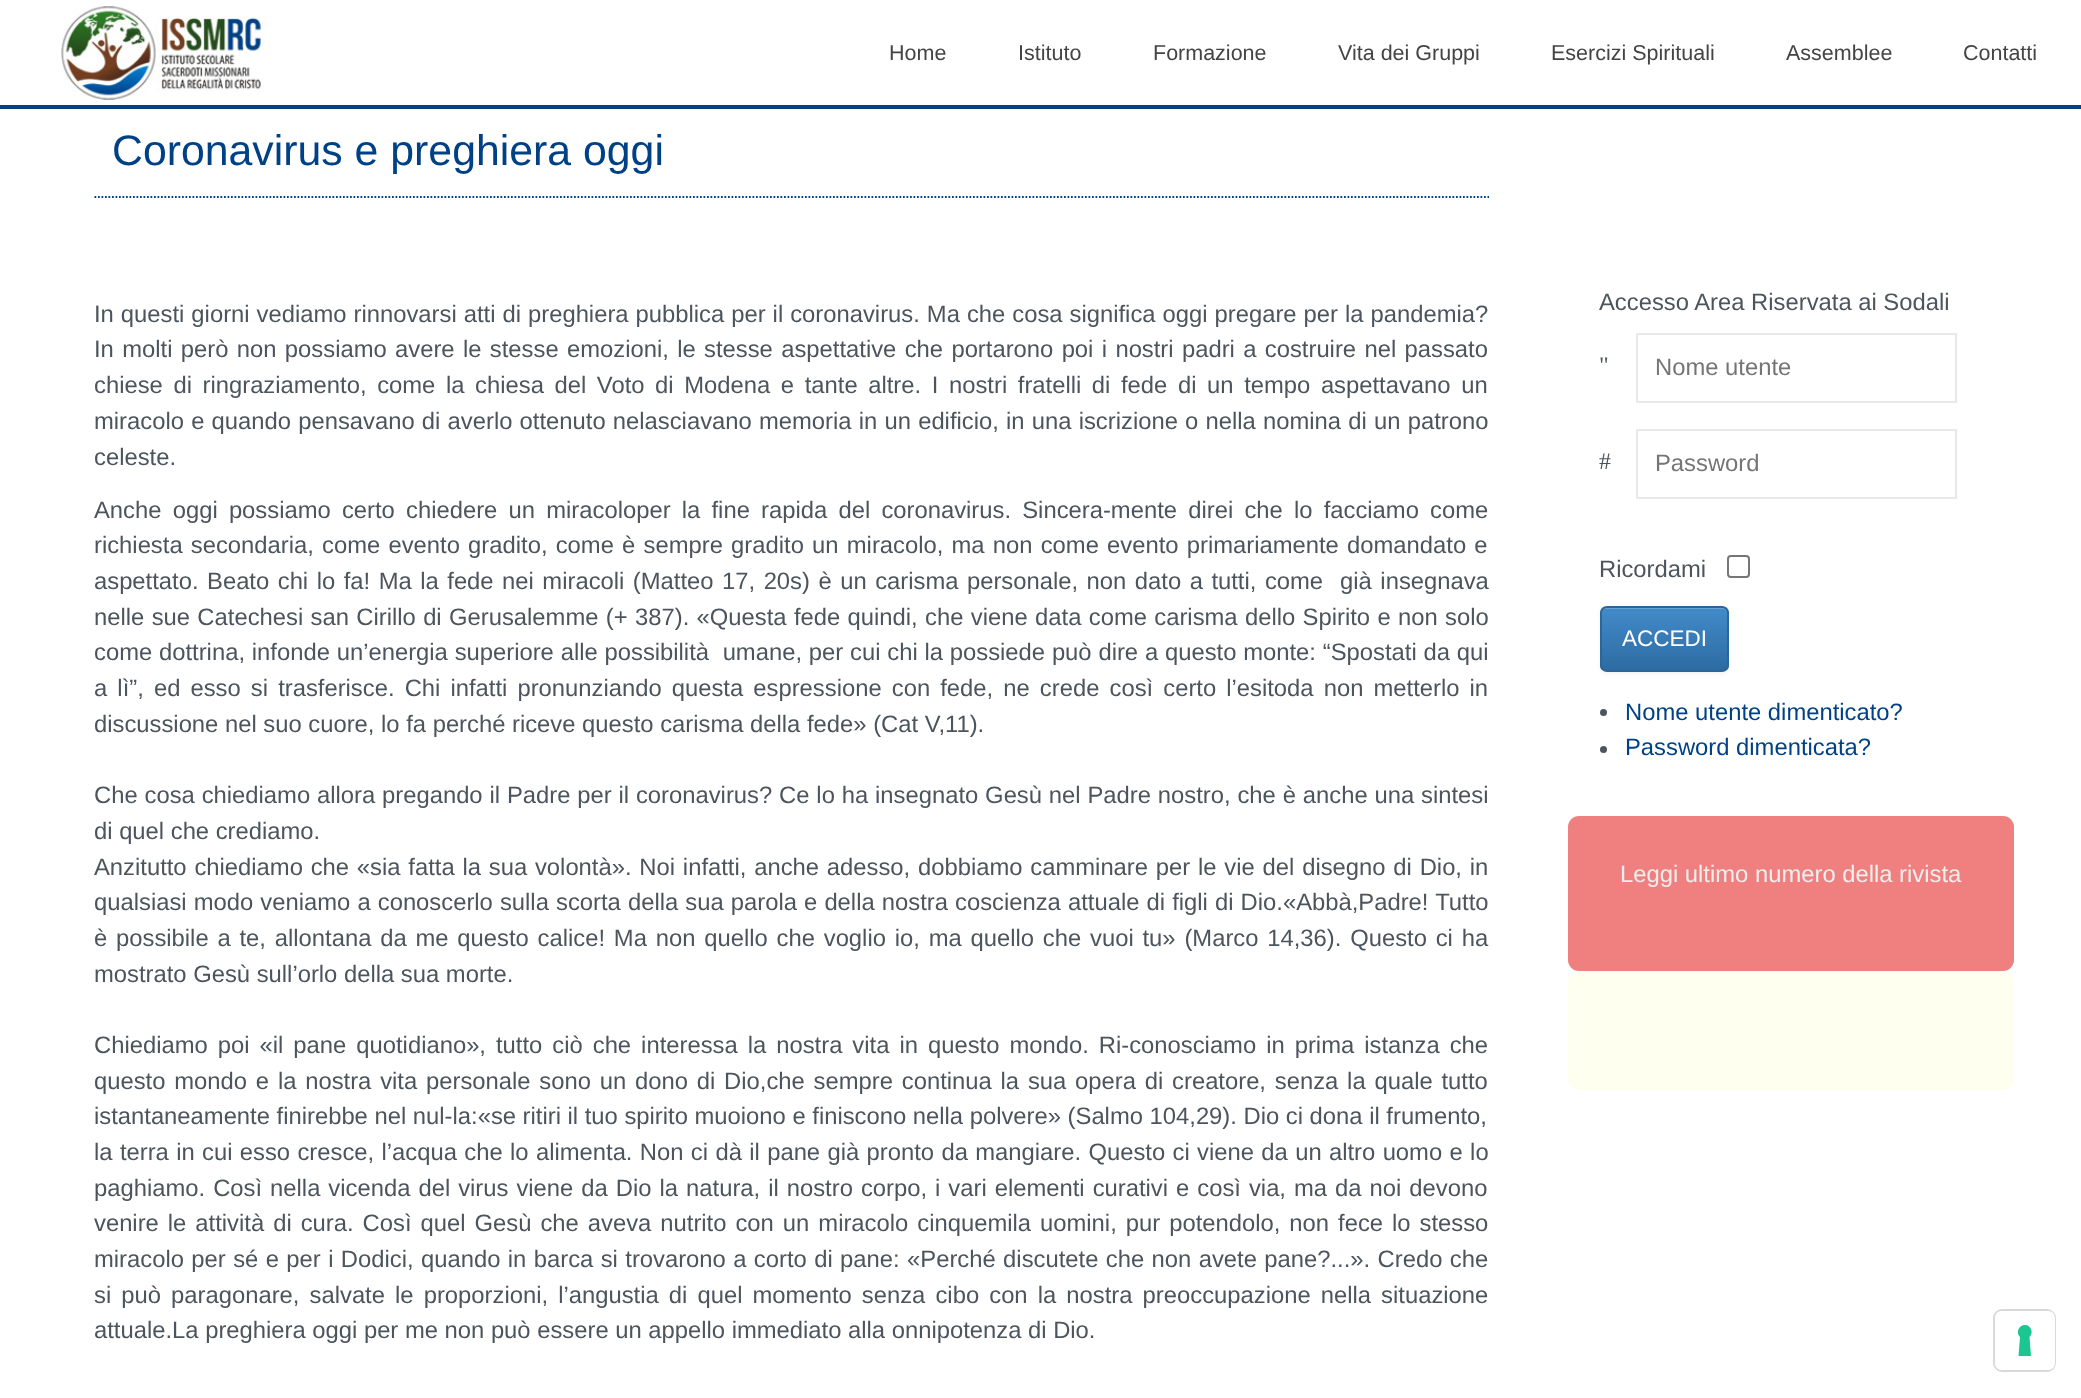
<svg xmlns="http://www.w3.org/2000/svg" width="2081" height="1398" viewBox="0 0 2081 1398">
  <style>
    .t1 { font: 21.5px Liberation Sans; fill: #444; }
    .t2 { font: 42.8px Liberation Sans; fill: #004186; }
    .t3 { font: 23.8px Liberation Sans; fill: #4c555d; }
    .t4 { font: 23.8px Liberation Serif; fill: #4c555d; }
    .t5 { font: 23.8px Liberation Sans; fill: #757575; }
    .t6 { font: 22.5px Liberation Sans; fill: #fff; }
    .t7 { font: 23.8px Liberation Sans; fill: #004186; }
    .t8 { font: 23.8px Liberation Sans; fill: #eee; }
  </style>
  <defs>
    <clipPath id="clip1"><rect x="1600" y="606" width="129" height="66" rx="7"/></clipPath>
    <linearGradient id="g1" gradientUnits="userSpaceOnUse" x1="1664" y1="607" x2="1664" y2="670"><stop offset="0" stop-color="#428bca"/><stop offset="1" stop-color="#2d6ca2"/></linearGradient>
  </defs>
  <rect width="100%" height="100%" fill="#fff"/>
  <rect x="0" y="105" width="2081" height="4" fill="#004186"/>
  <image x="61" y="6" width="204" height="94" href="images/1.png"/>
  <text x="889" y="60" class="t1">Home</text>
  <text x="1018" y="60" class="t1">Istituto</text>
  <text x="1153" y="60" class="t1">Formazione</text>
  <text x="1338" y="60" class="t1">Vita dei Gruppi</text>
  <text x="1551" y="60" class="t1">Esercizi Spirituali</text>
  <text x="1786" y="60" class="t1">Assemblee</text>
  <text x="1963" y="60" class="t1">Contatti</text>
  <path d="M94.5 197H1489" fill="none" stroke="#004186" stroke-width="1.8" stroke-dasharray="1.75 1.75"/>
  <text x="112" y="165" class="t2">Coronavirus e preghiera oggi</text>
  <text x="94" y="322" word-spacing="0.4" class="t3">In questi giorni vediamo rinnovarsi atti di preghiera pubblica per il coronavirus. Ma che cosa significa oggi pregare per la pandemia?</text>
  <text x="94" y="357" word-spacing="1.75" class="t3">In molti però non possiamo avere le stesse emozioni, le stesse aspettative che portarono poi i nostri padri a costruire nel passato</text>
  <text x="94" y="393" word-spacing="4" class="t3">chiese di ringraziamento, come la chiesa del Voto di Modena e tante altre. I nostri fratelli di fede di un tempo aspettavano un</text>
  <text x="94" y="429" word-spacing="0.6" class="t3">miracolo e quando pensavano di averlo ottenuto nelasciavano memoria in un edificio, in una iscrizione o nella nomina di un patrono</text>
  <text x="94" y="465" class="t3">celeste.</text>
  <text x="94" y="518" word-spacing="4.6" class="t3">Anche oggi possiamo certo chiedere un miracoloper la fine rapida del coronavirus. Sincera-mente direi che lo facciamo come</text>
  <text x="94" y="553" word-spacing="1.6" class="t3">richiesta secondaria, come evento gradito, come è sempre gradito un miracolo, ma non come evento primariamente domandato e</text>
  <text x="94" y="589" word-spacing="1.9" class="t3" xml:space="preserve">aspettato. Beato chi lo fa! Ma la fede nei miracoli (Matteo 17, 20s) è un carisma personale, non dato a tutti, come  già insegnava</text>
  <text x="94" y="625" word-spacing="0.75" class="t3">nelle sue Catechesi san Cirillo di Gerusalemme (+ 387). «Questa fede quindi, che viene data come carisma dello Spirito e non solo</text>
  <text x="94" y="660" word-spacing="0.2" class="t3" xml:space="preserve">come dottrina, infonde un’energia superiore alle possibilità  umane, per cui chi la possiede può dire a questo monte: “Spostati da qui</text>
  <text x="94" y="696" word-spacing="3.5" class="t3">a lì”, ed esso si trasferisce. Chi infatti pronunziando questa espressione con fede, ne crede così certo l’esitoda non metterlo in</text>
  <text x="94" y="732" class="t3">discussione nel suo cuore, lo fa perché riceve questo carisma della fede» (Cat V,11).</text>
  <text x="94" y="803" word-spacing="0.25" class="t3">Che cosa chiediamo allora pregando il Padre per il coronavirus? Ce lo ha insegnato Gesù nel Padre nostro, che è anche una sintesi</text>
  <text x="94" y="839" class="t3">di quel che crediamo.</text>
  <text x="94" y="875" word-spacing="1.2" class="t3">Anzitutto chiediamo che «sia fatta la sua volontà». Noi infatti, anche adesso, dobbiamo camminare per le vie del disegno di Dio, in</text>
  <text x="94" y="910" word-spacing="0.5" class="t3">qualsiasi modo veniamo a conoscerlo sulla scorta della sua parola e della nostra coscienza attuale di figli di Dio.«Abbà,Padre! Tutto</text>
  <text x="94" y="946" word-spacing="2.2" class="t3">è possibile a te, allontana da me questo calice! Ma non quello che voglio io, ma quello che vuoi tu» (Marco 14,36). Questo ci ha</text>
  <text x="94" y="982" class="t3">mostrato Gesù sull’orlo della sua morte.</text>
  <text x="94" y="1053" word-spacing="3.4" class="t3">Chiediamo poi «il pane quotidiano», tutto ciò che interessa la nostra vita in questo mondo. Ri-conosciamo in prima istanza che</text>
  <text x="94" y="1089" word-spacing="2.2" class="t3">questo mondo e la nostra vita personale sono un dono di Dio,che sempre continua la sua opera di creatore, senza la quale tutto</text>
  <text x="94" y="1124" class="t3">istantaneamente finirebbe nel nul-la:«se ritiri il tuo spirito muoiono e finiscono nella polvere» (Salmo 104,29). Dio ci dona il frumento,</text>
  <text x="94" y="1160" word-spacing="0.75" class="t3">la terra in cui esso cresce, l’acqua che lo alimenta. Non ci dà il pane già pronto da mangiare. Questo ci viene da un altro uomo e lo</text>
  <text x="94" y="1196" word-spacing="1.4" class="t3">paghiamo. Così nella vicenda del virus viene da Dio la natura, il nostro corpo, i vari elementi curativi e così via, ma da noi devono</text>
  <text x="94" y="1231" word-spacing="2.4" class="t3">venire le attività di cura. Così quel Gesù che aveva nutrito con un miracolo cinquemila uomini, pur potendolo, non fece lo stesso</text>
  <text x="94" y="1267" word-spacing="0.8" class="t3">miracolo per sé e per i Dodici, quando in barca si trovarono a corto di pane: «Perché discutete che non avete pane?...». Credo che</text>
  <text x="94" y="1303" word-spacing="3.5" class="t3">si può paragonare, salvate le proporzioni, l’angustia di quel momento senza cibo con la nostra preoccupazione nella situazione</text>
  <text x="94" y="1338" class="t3">attuale.La preghiera oggi per me non può essere un appello immediato alla onnipotenza di Dio.</text>
  <text x="1599" y="310" class="t3">Accesso Area Riservata ai Sodali</text>
  <text x="1599" y="373" class="t4">"</text>
  <rect x="1637" y="334" width="319" height="68" fill="none" stroke="#e8e8e8" stroke-width="2"/>
  <text x="1655" y="375" class="t5">Nome utente</text>
  <text x="1599" y="469" class="t4">#</text>
  <rect x="1637" y="430" width="319" height="68" fill="none" stroke="#e8e8e8" stroke-width="2"/>
  <text x="1655" y="471" class="t5">Password</text>
  <text x="1599" y="577" class="t3">Ricordami</text>
  <rect x="1728" y="556" width="21" height="21" rx="3" fill="none" stroke="#767676" stroke-width="2"/>
  <rect x="1600" y="607" width="129" height="67" rx="7" fill="#0000000d" filter="blur(2px)"/>
  <g clip-path="url(#clip1)">
    <rect x="1600" y="607" width="129" height="63" fill="url(#g1)"/>
  </g>
  <path d="M1606 609H1722C1725 609 1727 611 1727 614V612C1727 609 1725 607 1722 607H1606C1603 607 1601 609 1601 612V614C1601 611 1604 609 1606 609Z" fill="#ffffff33"/>
  <rect x="1601" y="607" width="127" height="64" rx="6" fill="none" stroke="#2b669a" stroke-width="2"/>
  <text x="1622" y="646" class="t6">ACCEDI</text>
  <circle cx="1603.5" cy="712.5" r="3.5" fill="#4c555d"/>
  <text x="1625" y="720" class="t7">Nome utente dimenticato?</text>
  <circle cx="1603.5" cy="749.5" r="3.5" fill="#4c555d"/>
  <text x="1625" y="755" class="t7">Password dimenticata?</text>
  <rect x="1568" y="816" width="446" height="155" rx="11" fill="#f08080"/>
  <text x="1620" y="882" class="t8">Leggi ultimo numero della rivista</text>
  <rect x="1568" y="971" width="446" height="119" rx="11" fill="#fffff0"/>
  <rect x="1994" y="1310" width="61" height="61" rx="8" fill="none" stroke="#d9d9d9" stroke-width="2"/>
  <rect x="1995" y="1311" width="60" height="59" rx="7" fill="#fff"/>
  <path d="M2025 1325C2031 1325 2034 1333 2029.5 1337L2031 1356H2018.5L2020 1337C2015.5 1333 2018.5 1325 2025 1325Z" fill="#1cc691" fill-rule="evenodd"/>
</svg>
